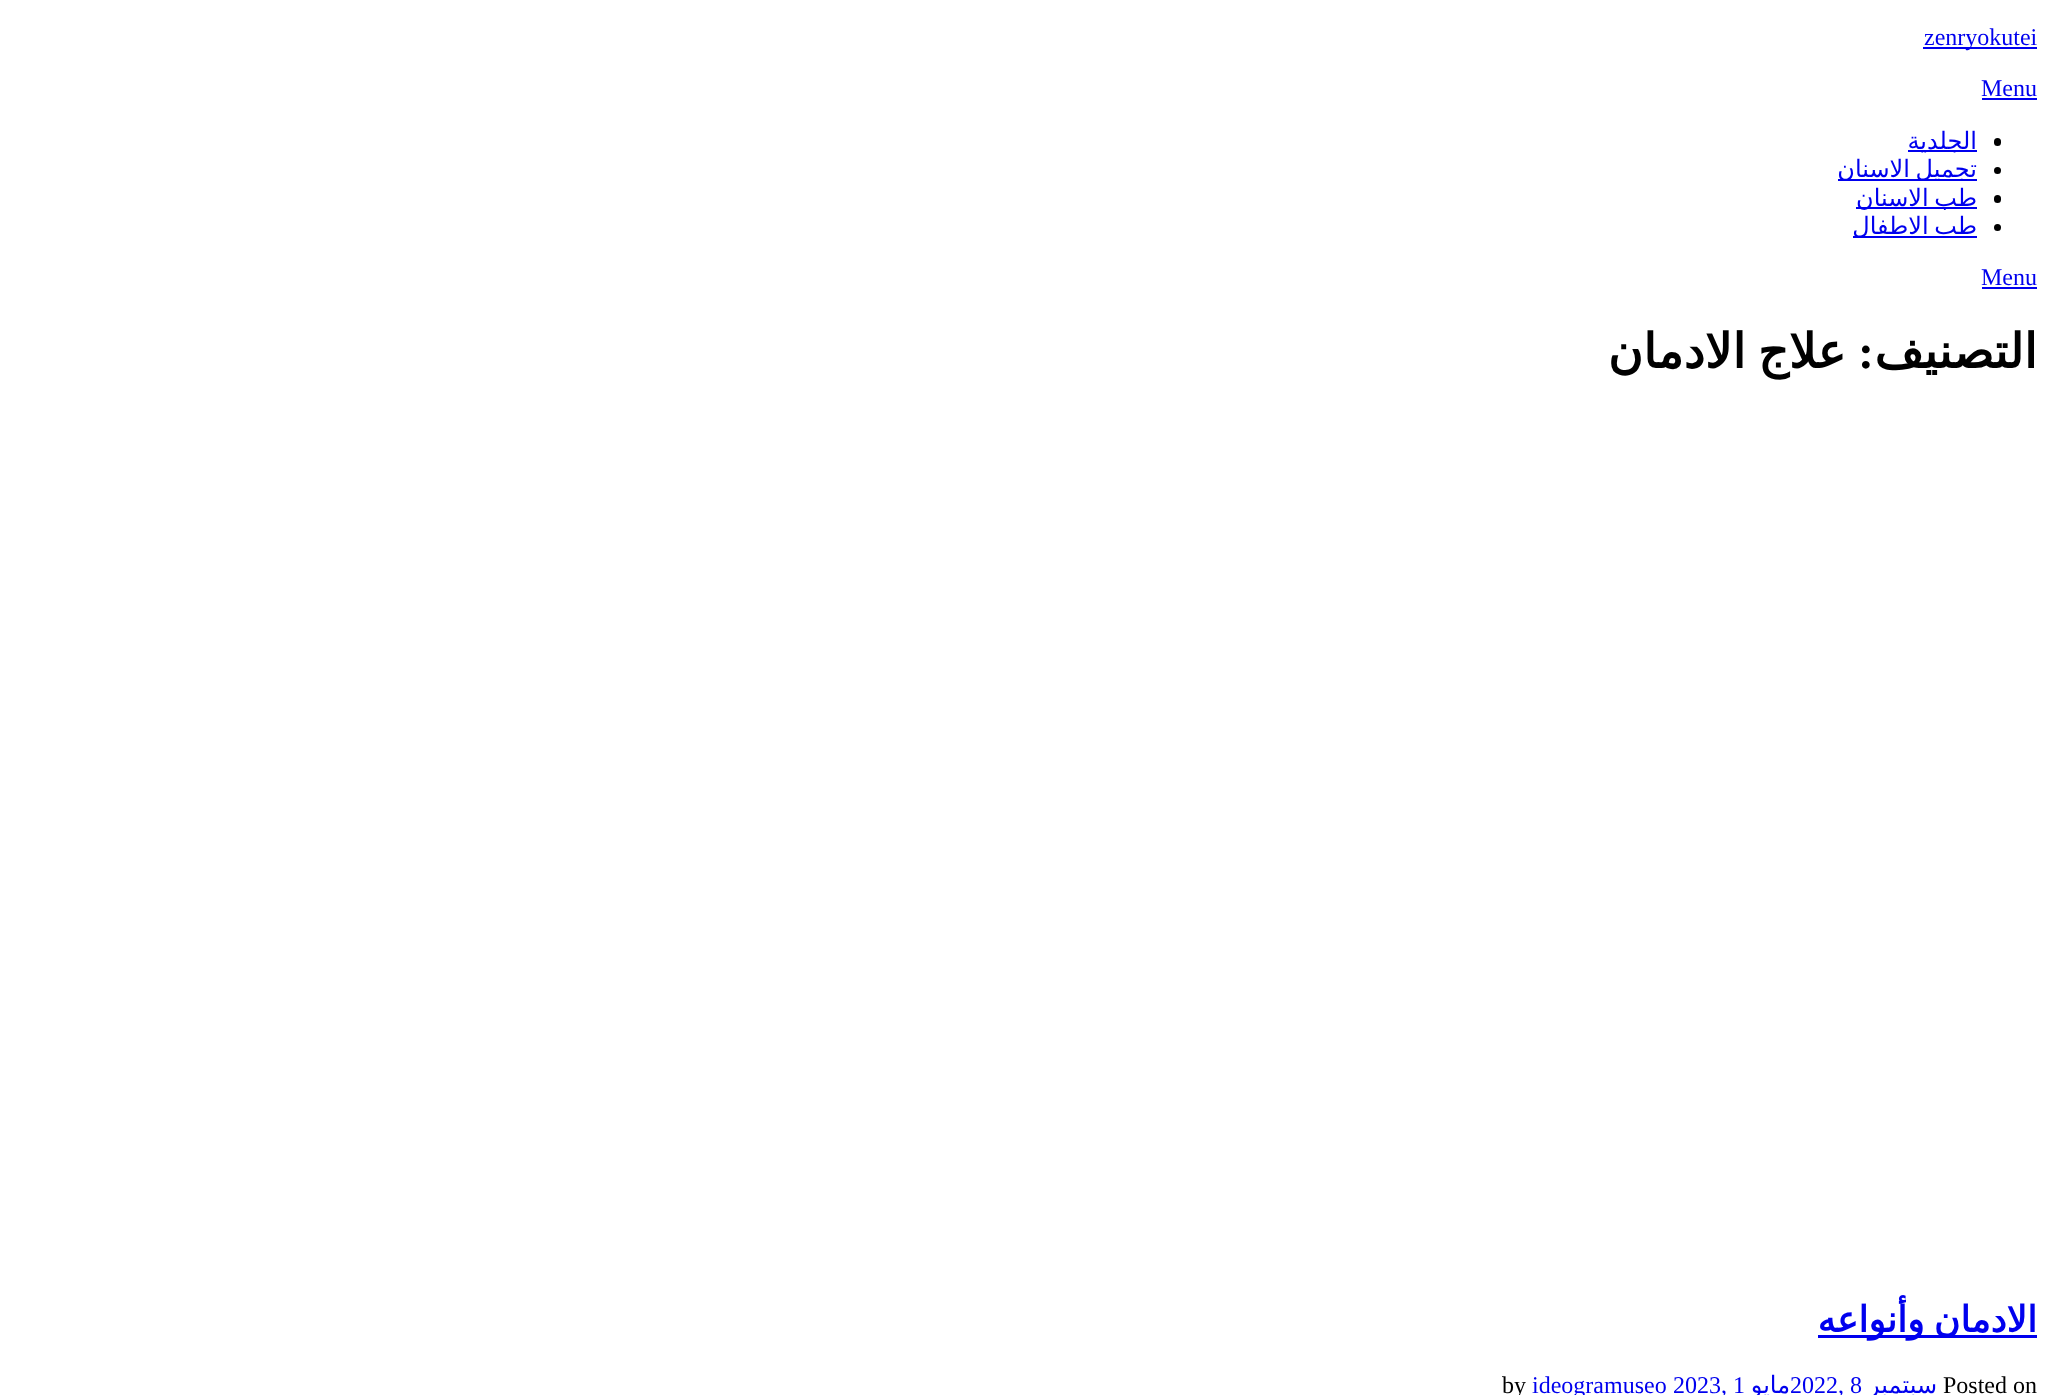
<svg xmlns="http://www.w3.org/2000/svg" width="2049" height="1395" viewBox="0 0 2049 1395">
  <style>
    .t1 { font: 24px Liberation Serif; fill: #00e; }
    .t2 { font: 24px DejaVu Sans; direction: rtl; fill: #00e; }
    .t3 { font: bold 48px DejaVu Sans; direction: rtl; fill: #000; }
    .t4 { font: bold 48px Liberation Serif; direction: rtl; fill: #000; }
    .t5 { font: bold 36px DejaVu Sans; direction: rtl; fill: #00e; }
    .t6 { font: 24px Liberation Serif; fill: #000; }
  </style>
  <rect width="100%" height="100%" fill="#fff"/>
  <rect x="1923" y="47" width="114" height="2" fill="#00e"/>
  <text x="1924" y="45" class="t1">zenryokutei</text>
  <text x="1981" y="96" class="t1">Menu</text>
  <rect x="1982" y="98" width="55" height="2" fill="#00e"/>
  <rect x="1994" y="138" width="7" height="8" rx="3.5" fill="#000"/>
  <rect x="1908" y="150" width="69" height="2" fill="#00e"/>
  <text x="1977" y="149" class="t2">الجلدية</text>
  <circle cx="1997.5" cy="170.5" r="3.5" fill="#000"/>
  <rect x="1838" y="179" width="139" height="2" fill="#00e"/>
  <text x="1977" y="177" word-spacing="-2" class="t2">تجميل الاسنان</text>
  <rect x="1994" y="195" width="7" height="8" rx="3.5" fill="#000"/>
  <rect x="1856" y="207" width="121" height="2" fill="#00e"/>
  <text x="1977" y="206" word-spacing="-2" class="t2">طب الاسنان</text>
  <circle cx="1997.5" cy="227.5" r="3.5" fill="#000"/>
  <rect x="1853" y="236" width="124" height="2" fill="#00e"/>
  <text x="1977" y="234" word-spacing="-2" class="t2">طب الاطفال</text>
  <text x="1981" y="285" class="t1">Menu</text>
  <rect x="1982" y="287" width="55" height="2" fill="#00e"/>
  <text x="2037" y="368" class="t3">التصنيف</text>
  <text x="1874" y="368" class="t4">:</text>
  <text x="1846" y="368" word-spacing="-3" class="t3">علاج الادمان</text>
  <rect x="1818" y="1335" width="219" height="3" fill="#00e"/>
  <text x="2037" y="1332" word-spacing="-2" class="t5">الادمان وأنواعه</text>
  <text x="1943" y="1393" class="t6">Posted on</text>
  <text x="1937" y="1393" class="t2">سبتمبر</text>
  <text x="1790" y="1393" class="t1">2022, 8</text>
  <text x="1790" y="1393" class="t2">مايو</text>
  <text x="1673" y="1393" class="t1">2023, 1</text>
  <text x="1532" y="1393" class="t1">ideogramuseo</text>
  <text x="1502" y="1393" class="t6">by</text>
</svg>
